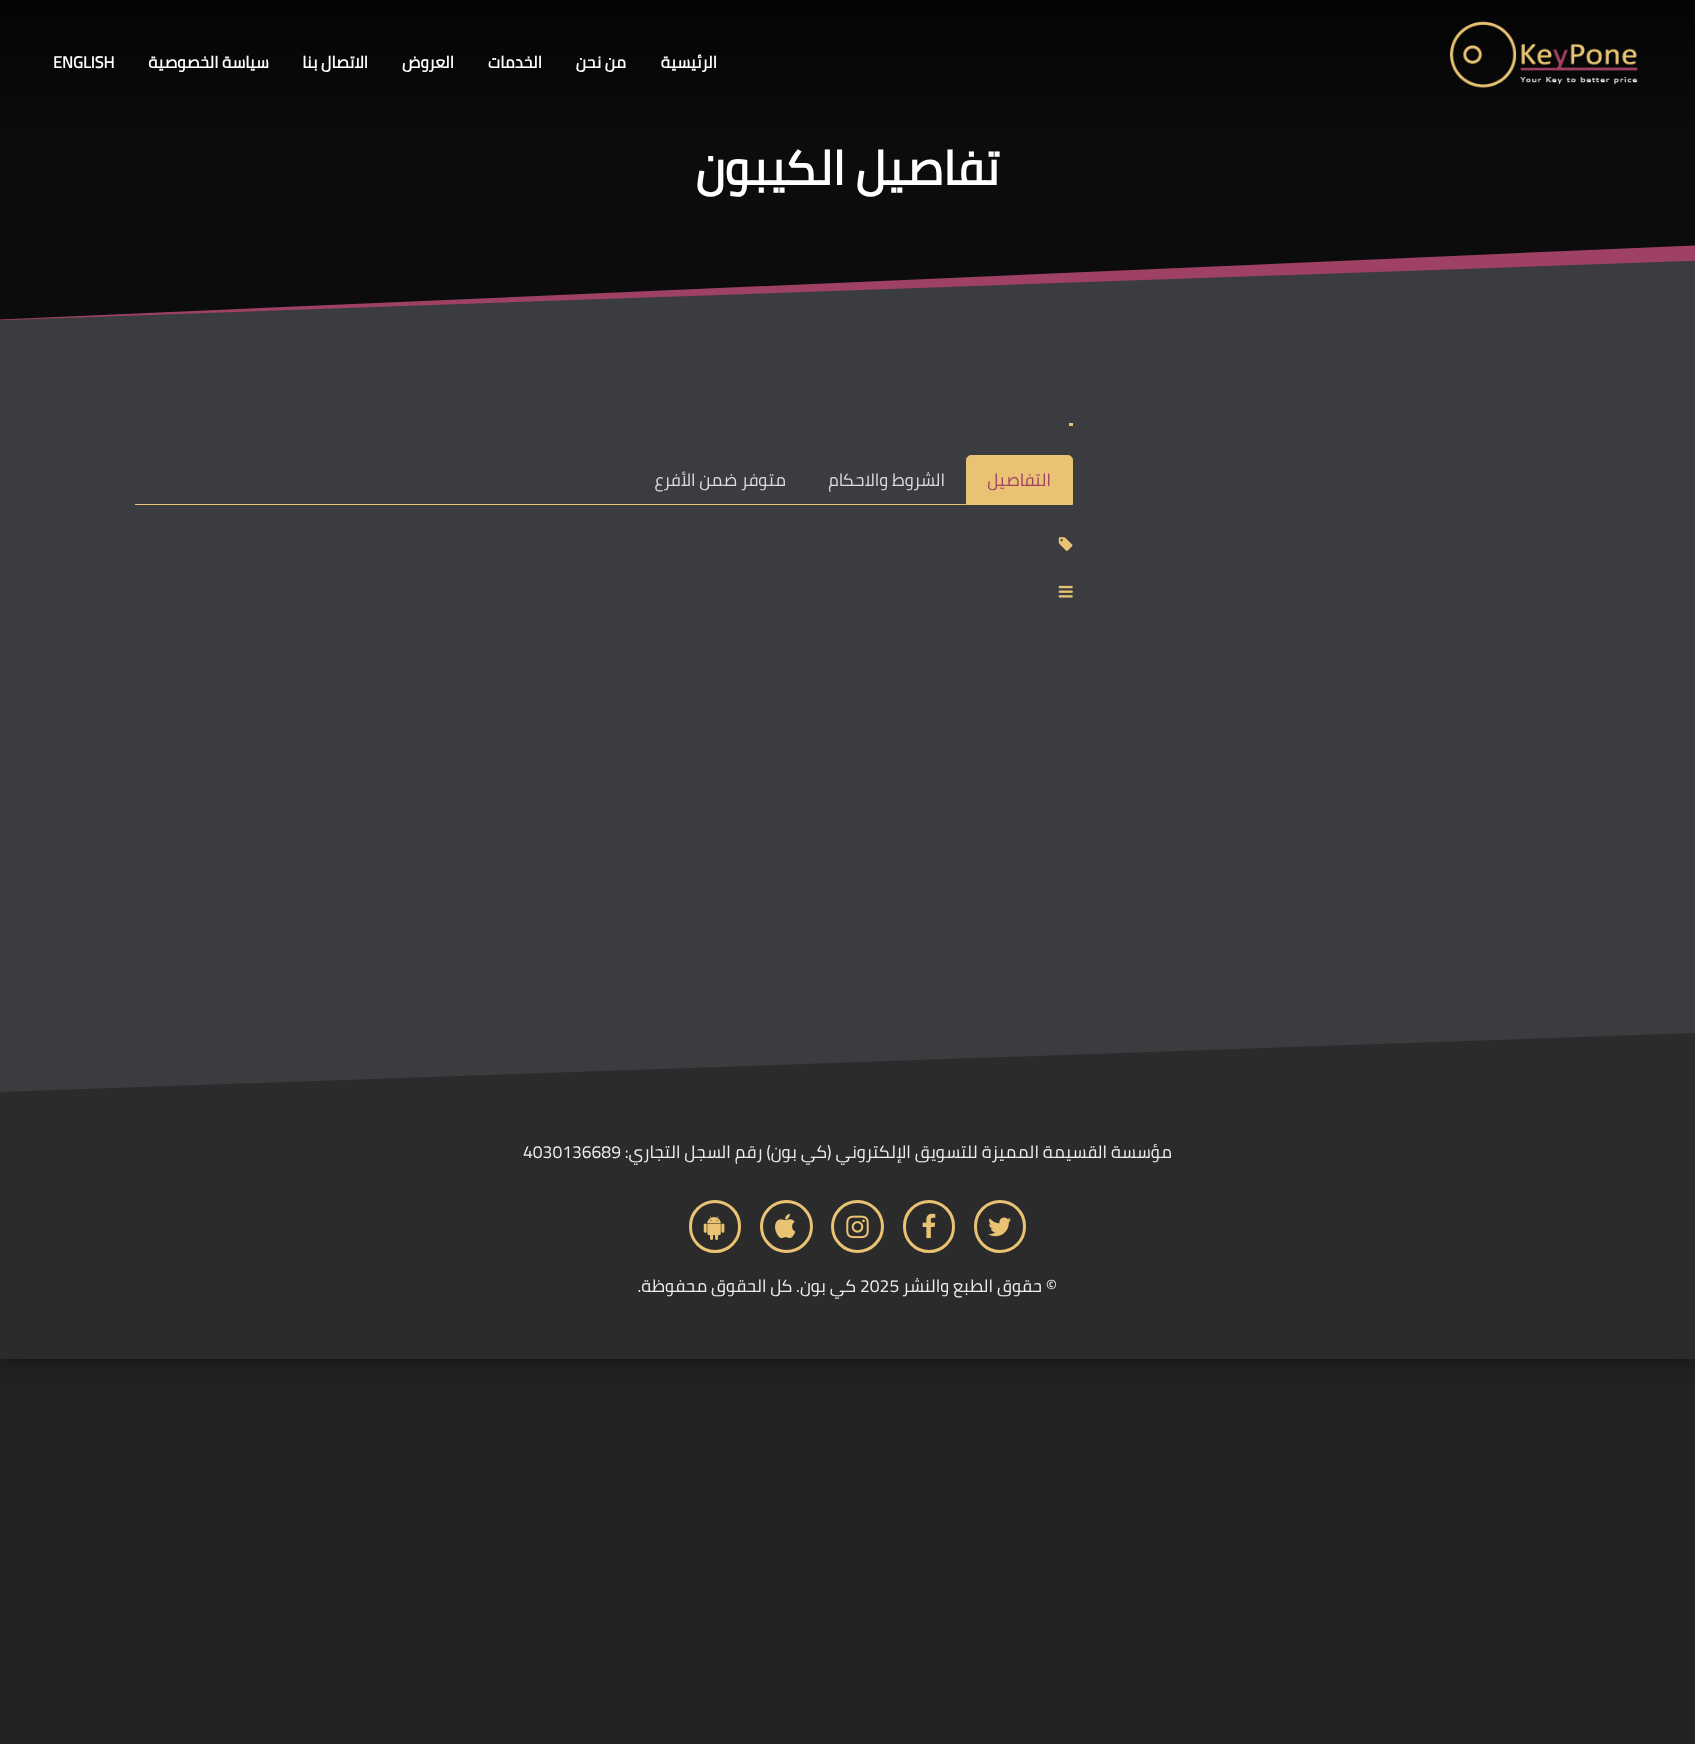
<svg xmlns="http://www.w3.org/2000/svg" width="1695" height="1744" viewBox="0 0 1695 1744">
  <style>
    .t1 { font: bold 16.25px Cairo; direction: rtl; fill: #fff; }
    .t2 { font: bold 16.25px Cairo; fill: #fff; }
    .t3 { font: bold 47.5px Cairo; direction: rtl; fill: #fff; }
    .t4 { font: 17.5px Cairo; direction: rtl; fill: #9f4165; }
    .t5 { font: 17.5px Cairo; direction: rtl; fill: #ddd; }
    .t6 { font: 17.5px Cairo; direction: rtl; fill: #eee; }
    .t7 { font: 17.5px Cairo; fill: #eee; }
  </style>
  <defs>
    <linearGradient id="g1" gradientUnits="userSpaceOnUse" x1="848" y1="0" x2="848" y2="150"><stop offset="0" stop-color="#040405"/><stop offset="0.99" stop-color="#0c0c0d"/><stop offset="1" stop-color="#0c0c0d"/></linearGradient>
    <clipPath id="clip1"><rect x="0" y="0" width="1695" height="1359"/></clipPath>
  </defs>
  <rect width="100%" height="100%" fill="#222"/>
  <rect x="0" y="0" width="1695" height="1359" fill="#00000080" filter="blur(12.5px)"/>
  <rect x="0" y="778" width="1695" height="314" fill="#3b3c3f"/>
  <rect x="0" y="0" width="1695" height="150" fill="url(#g1)"/>
  <image x="1450" y="21" width="188" height="67" href="images/1.png"/>
  <text x="717" y="68" class="t1">الرئيسية</text>
  <text x="626" y="68" class="t1">من نحن</text>
  <text x="542" y="68" class="t1">الخدمات</text>
  <text x="454" y="68" class="t1">العروض</text>
  <text x="368" y="68" class="t1">الاتصال بنا</text>
  <text x="269" y="68" class="t1">سياسة الخصوصية</text>
  <text x="53" y="68" class="t2">ENGLISH</text>
  <rect x="0" y="150" width="1695" height="170" fill="#0c0c0d"/>
  <text x="999" y="185" class="t3">تفاصيل الكيبون</text>
  <path d="M-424 338L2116 227L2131 571L-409 682Z" fill="#9f4165"/>
  <path d="M-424 335L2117 246L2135 763L-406 852Z" fill="#3b3c3f"/>
  <rect x="1069" y="423" width="4" height="3" fill="#e9c373"/>
  <rect x="135" y="504" width="831" height="1" fill="#e9c373"/>
  <path d="M971 455.5H1068C1070.5 455.5 1072.5 457.5 1072.5 460V504.5H966.5V460C966.5 457.5 968.5 455.5 971 455.5Z" fill="#e9c373" stroke="#e9c373"/>
  <text x="1051" y="486" class="t4">التفاصيل</text>
  <text x="945" y="486" class="t5">الشروط والاحكام</text>
  <text x="786" y="486" class="t5">متوفر ضمن الأفرع</text>
  <image x="1058" y="537" width="15" height="14" href="images/2.png"/>
  <image x="1058" y="585" width="15" height="13" href="images/3.png"/>
  <g clip-path="url(#clip1)">
    <path d="M0 1092L1695 1033V1392L0 1451Z" fill="#2b2b2b"/>
  </g>
  <text x="1172" y="1158" class="t6">مؤسسة القسيمة المميزة للتسويق الإلكتروني (كي بون) رقم السجل التجاري:</text>
  <text x="523" y="1158" class="t7">4030136689</text>
  <rect x="975.5" y="1201.5" width="49" height="50" rx="24.5" fill="none" stroke="#e9c373" stroke-width="3"/>
  <image x="988" y="1217" width="24" height="20" href="images/4.png"/>
  <rect x="904.5" y="1201.5" width="49" height="50" rx="24.5" fill="none" stroke="#e9c373" stroke-width="3"/>
  <image x="922" y="1213" width="14" height="26" href="images/5.png"/>
  <circle cx="857.5" cy="1226.5" r="25" fill="none" stroke="#e9c373" stroke-width="3"/>
  <image x="846" y="1215" width="23" height="24" href="images/6.png"/>
  <circle cx="786.5" cy="1226.5" r="25" fill="none" stroke="#e9c373" stroke-width="3"/>
  <image x="775" y="1213" width="21" height="26" href="images/7.png"/>
  <rect x="690.5" y="1201.5" width="49" height="50" rx="24.5" fill="none" stroke="#e9c373" stroke-width="3"/>
  <image x="703" y="1215" width="22" height="25" href="images/8.png"/>
  <text x="1057" y="1292" class="t6">© حقوق الطبع والنشر</text>
  <text x="860" y="1292" class="t7">2025</text>
  <text x="856" y="1292" class="t6">كي بون. كل الحقوق محفوظة.</text>
</svg>
